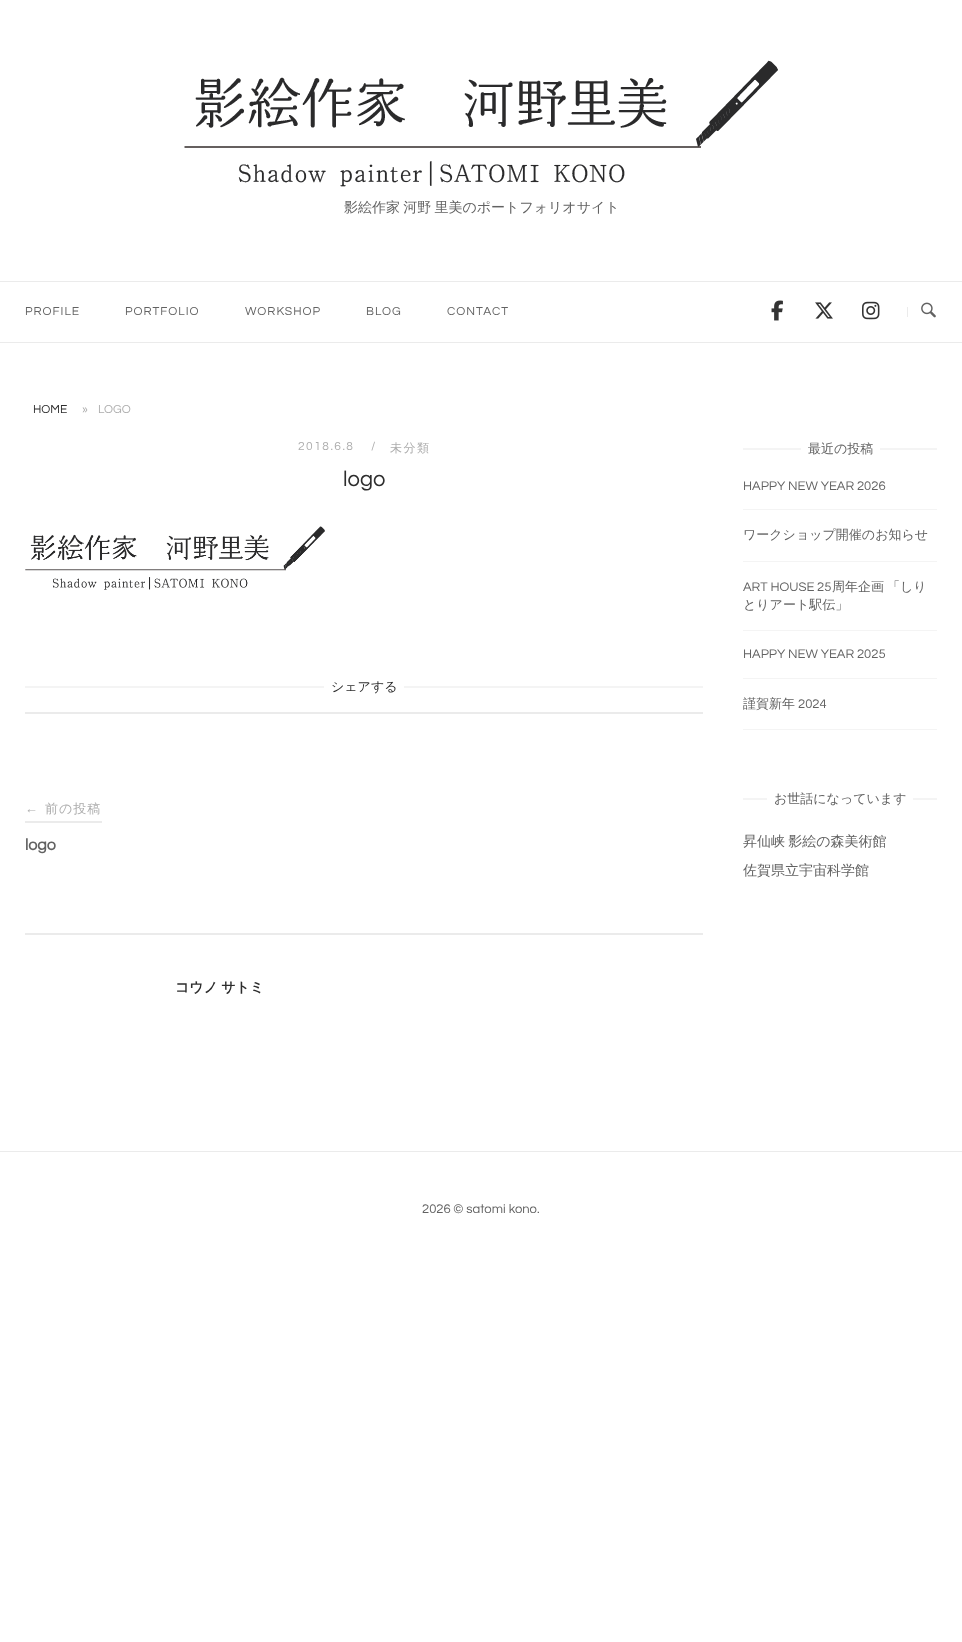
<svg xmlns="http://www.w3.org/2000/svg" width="962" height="1642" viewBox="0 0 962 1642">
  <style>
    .t1 { font: 500 14px WenQuanYi Zen Hei; fill: #626262; }
    .t2 { font: 12px Questrial; letter-spacing: 1px; fill: #626262; }
    .t3 { font: 12px Questrial; fill: #2d2d2d; }
    .t4 { font: 12px Questrial; fill: #adadad; }
    .t5 { font: 12px Questrial; letter-spacing: 1.5px; fill: #adadad; }
    .t6 { font: 500 12px WenQuanYi Zen Hei; letter-spacing: 1.5px; fill: #adadad; }
    .t7 { font: 22px Questrial; fill: #2d2d2d; }
    .t8 { font: 500 13px WenQuanYi Zen Hei; fill: #2d2d2d; }
    .t9 { font: 13px Liberation Sans; letter-spacing: 1px; fill: #adadad; }
    .t10 { font: 500 13px WenQuanYi Zen Hei; letter-spacing: 1px; fill: #adadad; }
    .t11 { font: bold 16px Questrial; fill: #626262; }
    .t12 { font: bold 14px WenQuanYi Zen Hei; fill: #2d2d2d; }
    .t13 { font: 500 13px WenQuanYi Zen Hei; fill: #626262; }
    .t14 { font: 13px Questrial; fill: #626262; }
  </style>
  <rect width="100%" height="100%" fill="#fff"/>
  <image x="184" y="60" width="594" height="127" href="images/1.png"/>
  <text x="344" y="212" word-spacing="-1" class="t1">影絵作家 河野 里美のポートフォリオサイト</text>
  <rect x="0" y="281" width="962" height="1" fill="#ebebeb"/>
  <rect x="0" y="342" width="962" height="1" fill="#ebebeb"/>
  <text x="25" y="315" class="t2">PROFILE</text>
  <text x="125" y="315" class="t2">PORTFOLIO</text>
  <text x="245" y="315" class="t2">WORKSHOP</text>
  <text x="366" y="315" class="t2">BLOG</text>
  <text x="447" y="315" class="t2">CONTACT</text>
  <image x="771" y="300" width="12" height="21" href="images/2.png"/>
  <image x="815" y="302" width="18" height="17" href="images/3.png"/>
  <image x="862" y="301" width="18" height="19" href="images/4.png"/>
  <rect x="907" y="307" width="1" height="10" fill="#ebebeb"/>
  <image x="921" y="302" width="15" height="16" href="images/5.png"/>
  <text x="33" y="413" class="t3">HOME</text>
  <text x="82" y="413" class="t4">»</text>
  <text x="98" y="413" class="t4">LOGO</text>
  <text x="298" y="450" class="t5">2018.6.8</text>
  <text x="371" y="450" class="t5">/</text>
  <text x="390" y="452" class="t6">未分類</text>
  <text x="343" y="486" class="t7">logo</text>
  <image x="25" y="526" width="300" height="64" href="images/6.png"/>
  <rect x="25" y="686" width="299" height="2" fill="#f4f4f4"/>
  <text x="331" y="691" class="t8">シェアする</text>
  <rect x="404" y="686" width="299" height="2" fill="#f4f4f4"/>
  <rect x="25" y="712" width="678" height="2" fill="#ebebeb"/>
  <rect x="25" y="933" width="678" height="2" fill="#ebebeb"/>
  <rect x="25" y="821" width="77" height="2" fill="#ebebeb"/>
  <text x="25" y="813" class="t9">←</text>
  <text x="45" y="813" class="t10">前の投稿</text>
  <text x="25" y="850" class="t11">logo</text>
  <text x="175" y="992" word-spacing="-1" class="t12">コウノ サトミ</text>
  <rect x="743" y="448" width="58" height="2" fill="#f4f4f4"/>
  <text x="808" y="453" class="t13">最近の投稿</text>
  <rect x="880" y="448" width="57" height="2" fill="#f4f4f4"/>
  <rect x="743" y="509" width="194" height="1" fill="#f4f4f4"/>
  <text x="743" y="490" class="t14">HAPPY NEW YEAR 2026</text>
  <rect x="743" y="561" width="194" height="1" fill="#f4f4f4"/>
  <text x="743" y="539" class="t13">ワークショップ開催のお知らせ</text>
  <rect x="743" y="630" width="194" height="1" fill="#f4f4f4"/>
  <text x="743" y="591" class="t14">ART HOUSE 25</text>
  <text x="832" y="591" class="t13">周年企画</text>
  <text x="887" y="591" class="t13">「しり</text>
  <text x="743" y="609" class="t13">とりアート駅伝」</text>
  <rect x="743" y="678" width="194" height="1" fill="#f4f4f4"/>
  <text x="743" y="658" class="t14">HAPPY NEW YEAR 2025</text>
  <rect x="743" y="729" width="194" height="1" fill="#f4f4f4"/>
  <text x="743" y="708" class="t13">謹賀新年</text>
  <text x="798" y="708" class="t14">2024</text>
  <rect x="743" y="798" width="24" height="2" fill="#f4f4f4"/>
  <text x="774" y="803" class="t13">お世話になっています</text>
  <rect x="913" y="798" width="24" height="2" fill="#f4f4f4"/>
  <text x="743" y="846" word-spacing="-1" class="t1">昇仙峡 影絵の森美術館</text>
  <text x="743" y="875" class="t1">佐賀県立宇宙科学館</text>
  <rect x="0" y="1151" width="962" height="1" fill="#ebebeb"/>
  <text x="422" y="1213" class="t14">2026 © satomi kono.</text>
</svg>
